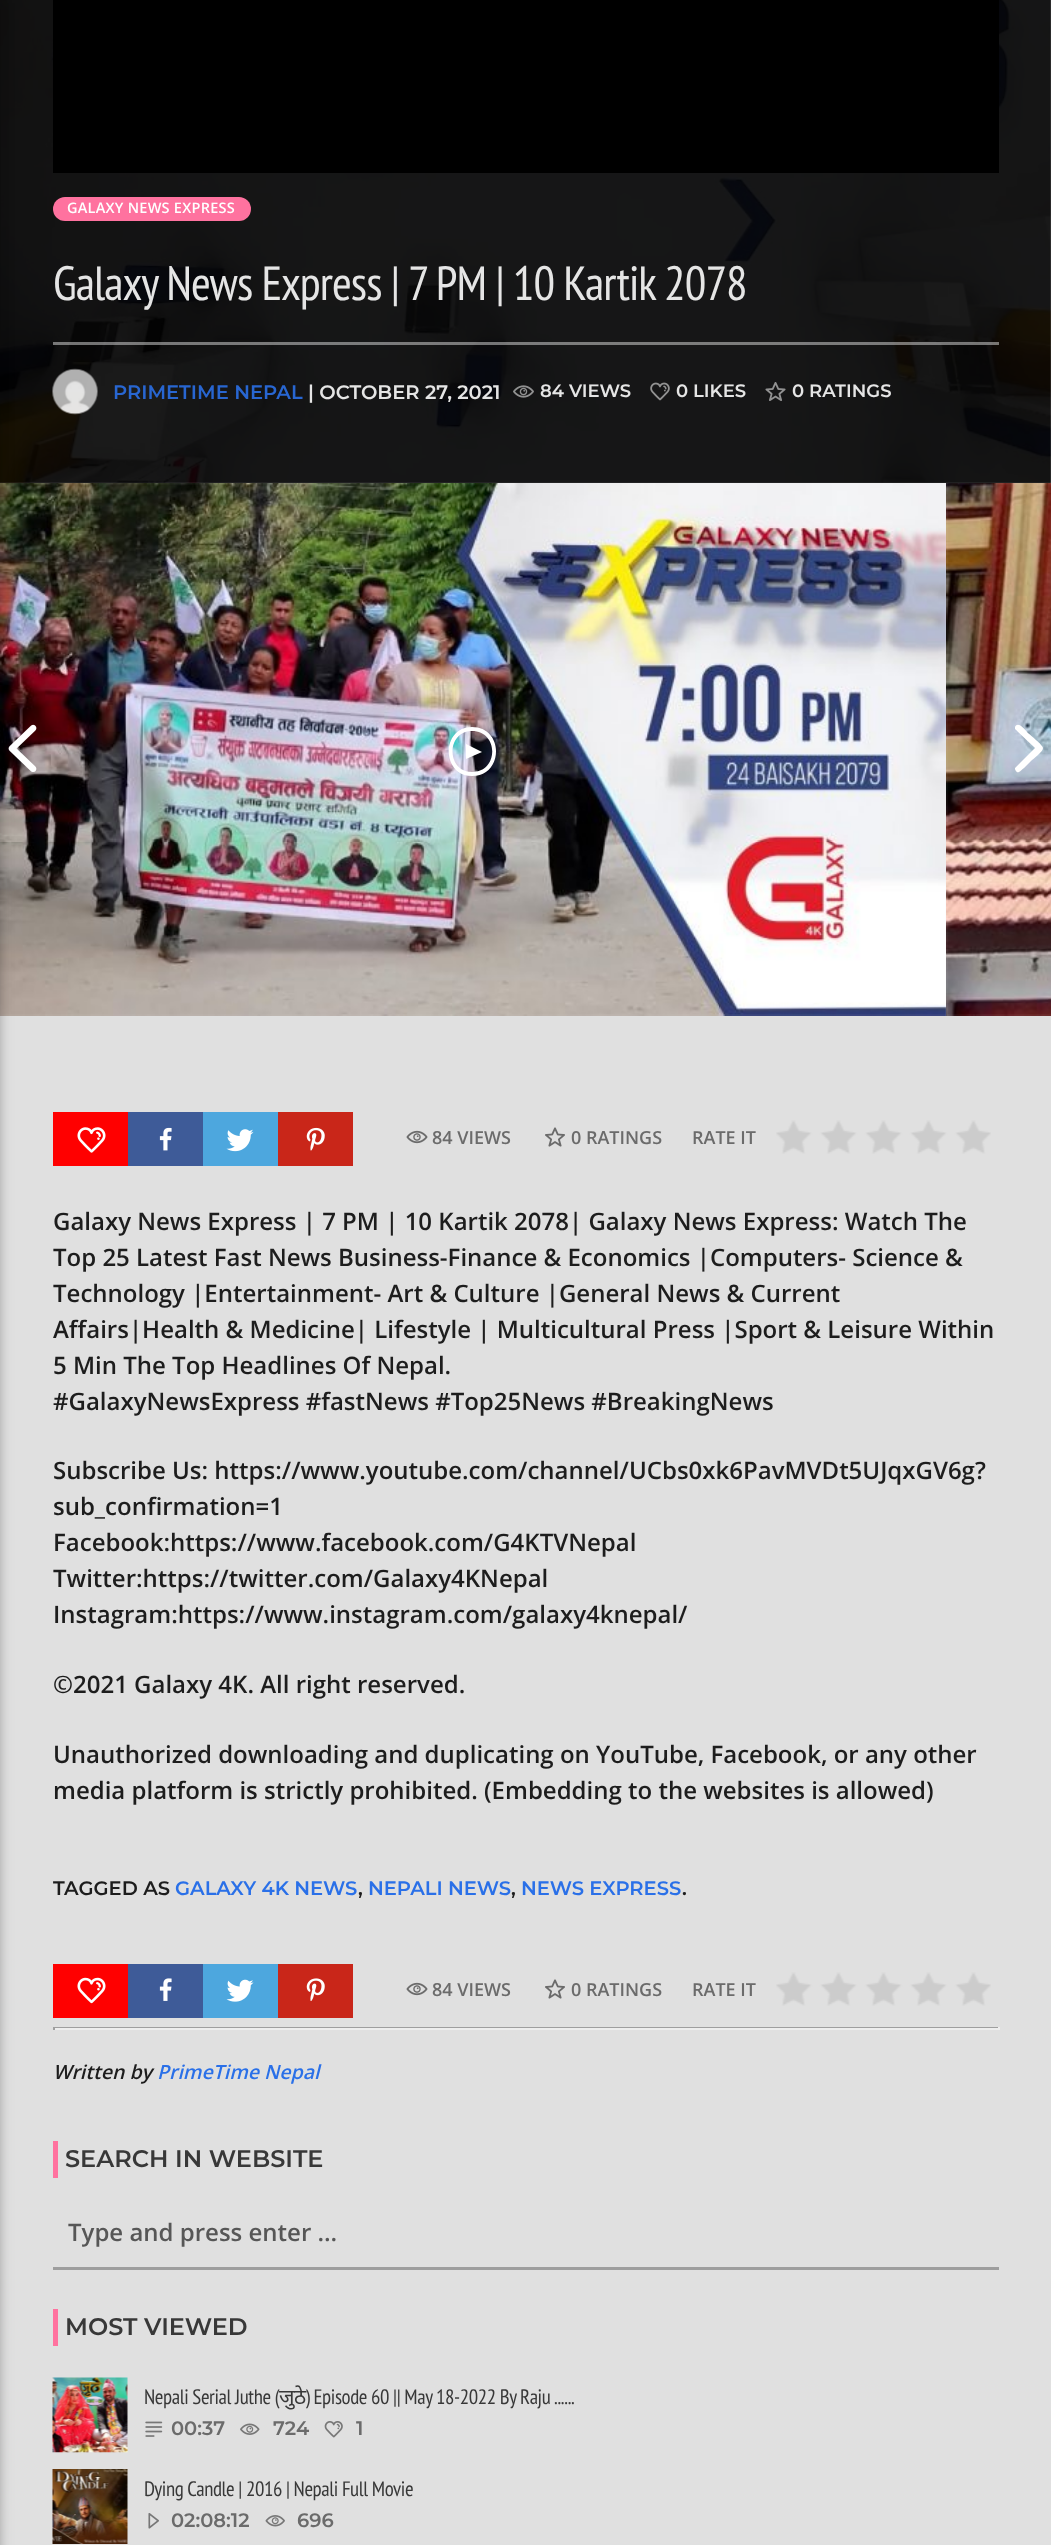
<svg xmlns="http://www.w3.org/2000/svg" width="1051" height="2545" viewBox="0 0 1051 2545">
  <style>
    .t1 { font: 600 14.5px Open Sans; letter-spacing: 0.25px; fill: #fff; }
    .t2 { font: 48px PT Sans Narrow; letter-spacing: -0.95px; fill: #e5e5e5; }
    .t3 { font: 600 19.5px Montserrat; fill: #2866d1; }
    .t4 { font: 600 19.5px Montserrat; fill: #e5e5e5; }
    .t5 { font: 600 18px Montserrat; fill: #e5e5e5; }
    .t6 { font: 600 18px Open Sans; fill: #6b6b6b; }
    .t7 { font: 600 24px Open Sans; fill: #1d1d1d; }
    .t8 { font: 600 19.5px Montserrat; fill: #1d1d1d; }
    .t9 { font: 600 19.5px Montserrat; fill: #2a70e8; }
    .t10 { font: italic 600 19.5px Open Sans; fill: #1d1d1d; }
    .t11 { font: italic 600 19.5px Open Sans; fill: #2a70e8; }
    .t12 { font: 600 24px Montserrat; fill: #383838; }
    .t13 { font: 600 24px Open Sans; fill: #575757; }
    .t14 { font: 20.9px PT Sans Narrow; letter-spacing: -0.4px; fill: #383838; }
    .t15 { font: 20.9px Noto Sans; letter-spacing: -0.4px; fill: #383838; }
    .t16 { font: 600 19.5px Montserrat; fill: #6b6b6b; }
  </style>
  <rect width="100%" height="100%" fill="#e0e0e0"/>
  <image x="0" y="0" width="1051" height="483" href="images/1.png"/>
  <image x="0" y="483" width="947" height="533" href="images/6.png"/>
  <image x="8" y="724" width="29" height="48" href="images/8.png"/>
  <rect x="-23" y="3" width="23" height="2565" fill="#0000001f" filter="blur(7.5px)"/>
  <rect x="-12" y="3" width="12" height="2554" fill="#00000029" filter="blur(4px)"/>
  <rect x="53" y="0" width="946" height="173" fill="#000"/>
  <rect x="53" y="197" width="198" height="24" rx="12" fill="#ff729f"/>
  <text x="67" y="213" class="t1">GALAXY NEWS EXPRESS</text>
  <text x="53" y="300" class="t2">Galaxy News Express | 7 PM | 10 Kartik 2078</text>
  <rect x="53" y="342" width="946" height="3" fill="#ffffff70"/>
  <image x="52" y="368" width="46" height="47" href="images/2.png"/>
  <text x="113" y="399" class="t3">PRIMETIME NEPAL</text>
  <text x="308" y="399" class="t4">| OCTOBER 27, 2021</text>
  <image x="513" y="385" width="21" height="13" href="images/3.png"/>
  <text x="540" y="397" class="t5">84 VIEWS</text>
  <image x="650" y="382" width="20" height="19" href="images/4.png"/>
  <text x="676" y="397" class="t5">0 LIKES</text>
  <image x="765" y="382" width="21" height="19" href="images/5.png"/>
  <text x="792" y="397" class="t5">0 RATINGS</text>
  <path d="M472 727C504 727 504 776 472 776C441 776 441 727 472 727ZM472 772C499 772 499 731 472 731C446 731 446 772 472 772ZM466 759V744L482 752Z" fill="#fff"/>
  <image x="946" y="483" width="105" height="533" href="images/7.png"/>
  <path d="M1043 748C1043 745 1030 735 1028 733C1026 731 1018 720 1015 727V729L1035 748L1015 768C1015 769 1015 770 1016 771C1018 775 1022 769 1024 768L1031 761C1033 759 1043 752 1043 748Z" fill="#fff"/>
  <rect x="53" y="1112" width="75" height="54" fill="#f00"/>
  <image x="77" y="1127" width="29" height="26" href="images/9.png"/>
  <rect x="128" y="1112" width="75" height="54" fill="#3e5b98"/>
  <image x="159" y="1127" width="13" height="24" href="images/10.png"/>
  <rect x="203" y="1112" width="75" height="54" fill="#4da7de"/>
  <image x="226" y="1129" width="28" height="23" href="images/11.png"/>
  <rect x="278" y="1112" width="75" height="54" fill="#c92619"/>
  <image x="306" y="1127" width="19" height="24" href="images/12.png"/>
  <image x="406" y="1130" width="22" height="14" href="images/13.png"/>
  <text x="432" y="1144" class="t6">84 VIEWS</text>
  <image x="545" y="1127" width="20" height="20" href="images/14.png"/>
  <text x="571" y="1144" class="t6">0 RATINGS</text>
  <text x="692" y="1144" class="t6">RATE IT</text>
  <image x="776" y="1120" width="215" height="34" href="images/15.png"/>
  <text x="53" y="1230" class="t7">Galaxy News Express | 7 PM | 10 Kartik 2078| Galaxy News Express: Watch The</text>
  <text x="53" y="1266" class="t7">Top 25 Latest Fast News Business-Finance &amp; Economics |Computers- Science &amp;</text>
  <text x="53" y="1302" class="t7">Technology |Entertainment- Art &amp; Culture |General News &amp; Current</text>
  <text x="53" y="1338" class="t7">Affairs|Health &amp; Medicine| Lifestyle | Multicultural Press |Sport &amp; Leisure Within</text>
  <text x="53" y="1374" class="t7">5 Min The Top Headlines Of Nepal.</text>
  <text x="53" y="1410" class="t7">#GalaxyNewsExpress #fastNews #Top25News #BreakingNews</text>
  <text x="53" y="1479" class="t7">Subscribe Us: https://www.youtube.com/channel/UCbs0xk6PavMVDt5UJqxGV6g?</text>
  <text x="53" y="1515" class="t7">sub_confirmation=1</text>
  <text x="53" y="1551" class="t7">Facebook:https://www.facebook.com/G4KTVNepal</text>
  <text x="53" y="1587" class="t7">Twitter:https://twitter.com/Galaxy4KNepal</text>
  <text x="53" y="1623" class="t7">Instagram:https://www.instagram.com/galaxy4knepal/</text>
  <text x="53" y="1693" class="t7">©2021 Galaxy 4K. All right reserved.</text>
  <text x="53" y="1763" class="t7">Unauthorized downloading and duplicating on YouTube, Facebook, or any other</text>
  <text x="53" y="1799" class="t7">media platform is strictly prohibited. (Embedding to the websites is allowed)</text>
  <text x="53" y="1895" class="t8">TAGGED AS</text>
  <text x="175" y="1895" class="t9">GALAXY 4K NEWS</text>
  <text x="358" y="1895" class="t8">,</text>
  <text x="368" y="1895" class="t9">NEPALI NEWS</text>
  <text x="511" y="1895" class="t8">,</text>
  <text x="521" y="1895" class="t9">NEWS EXPRESS</text>
  <text x="682" y="1895" class="t8">.</text>
  <rect x="53" y="1964" width="75" height="54" fill="#f00"/>
  <image x="77" y="1977" width="29" height="27" href="images/16.png"/>
  <rect x="128" y="1964" width="75" height="54" fill="#3e5b98"/>
  <image x="159" y="1978" width="13" height="23" href="images/17.png"/>
  <rect x="203" y="1964" width="75" height="54" fill="#4da7de"/>
  <image x="226" y="1979" width="28" height="23" href="images/18.png"/>
  <rect x="278" y="1964" width="75" height="54" fill="#c92619"/>
  <image x="306" y="1978" width="19" height="23" href="images/19.png"/>
  <image x="406" y="1982" width="22" height="14" href="images/13.png"/>
  <text x="432" y="1996" class="t6">84 VIEWS</text>
  <image x="545" y="1979" width="20" height="20" href="images/14.png"/>
  <text x="571" y="1996" class="t6">0 RATINGS</text>
  <text x="692" y="1996" class="t6">RATE IT</text>
  <image x="776" y="1972" width="215" height="34" href="images/15.png"/>
  <rect x="53" y="2027" width="946" height="1" fill="#9f9f9f"/>
  <rect x="998" y="2027" width="2" height="3" fill="#eee"/>
  <rect x="53" y="2028" width="946" height="2" fill="#eee"/>
  <rect x="53" y="2027" width="2" height="3" fill="#9f9f9f"/>
  <text x="53" y="2079" class="t10">Written by</text>
  <text x="157" y="2079" class="t11">PrimeTime Nepal</text>
  <rect x="53" y="2141" width="5" height="37" fill="#ff729f"/>
  <text x="65" y="2167" class="t12">SEARCH IN WEBSITE</text>
  <rect x="53" y="2267" width="946" height="3" fill="#9e9e9e"/>
  <text x="68" y="2241" class="t13">Type and press enter …</text>
  <rect x="53" y="2309" width="5" height="37" fill="#ff729f"/>
  <text x="65" y="2335" class="t12">MOST VIEWED</text>
  <image x="52" y="2377" width="76" height="76" href="images/20.png"/>
  <text x="144" y="2404" class="t14">Nepali Serial Juthe (</text>
  <text x="279" y="2404" class="t15">जुठे</text>
  <text x="305" y="2404" class="t14">) Episode 60 || May 18-2022 By Raju ......</text>
  <image x="145" y="2421" width="18" height="16" href="images/21.png"/>
  <text x="171" y="2435" class="t16">00:37</text>
  <image x="240" y="2423" width="20" height="12" href="images/22.png"/>
  <text x="273" y="2435" class="t16">724</text>
  <image x="324" y="2421" width="19" height="17" href="images/23.png"/>
  <text x="356" y="2435" class="t16">1</text>
  <image x="52" y="2469" width="76" height="75" href="images/24.png"/>
  <text x="144" y="2496" class="t14">Dying Candle | 2016 | Nepali Full Movie</text>
  <image x="148" y="2513" width="11" height="16" href="images/25.png"/>
  <text x="171" y="2527" class="t16">02:08:12</text>
  <image x="265" y="2515" width="20" height="12" href="images/26.png"/>
  <text x="297" y="2527" class="t16">696</text>
</svg>
